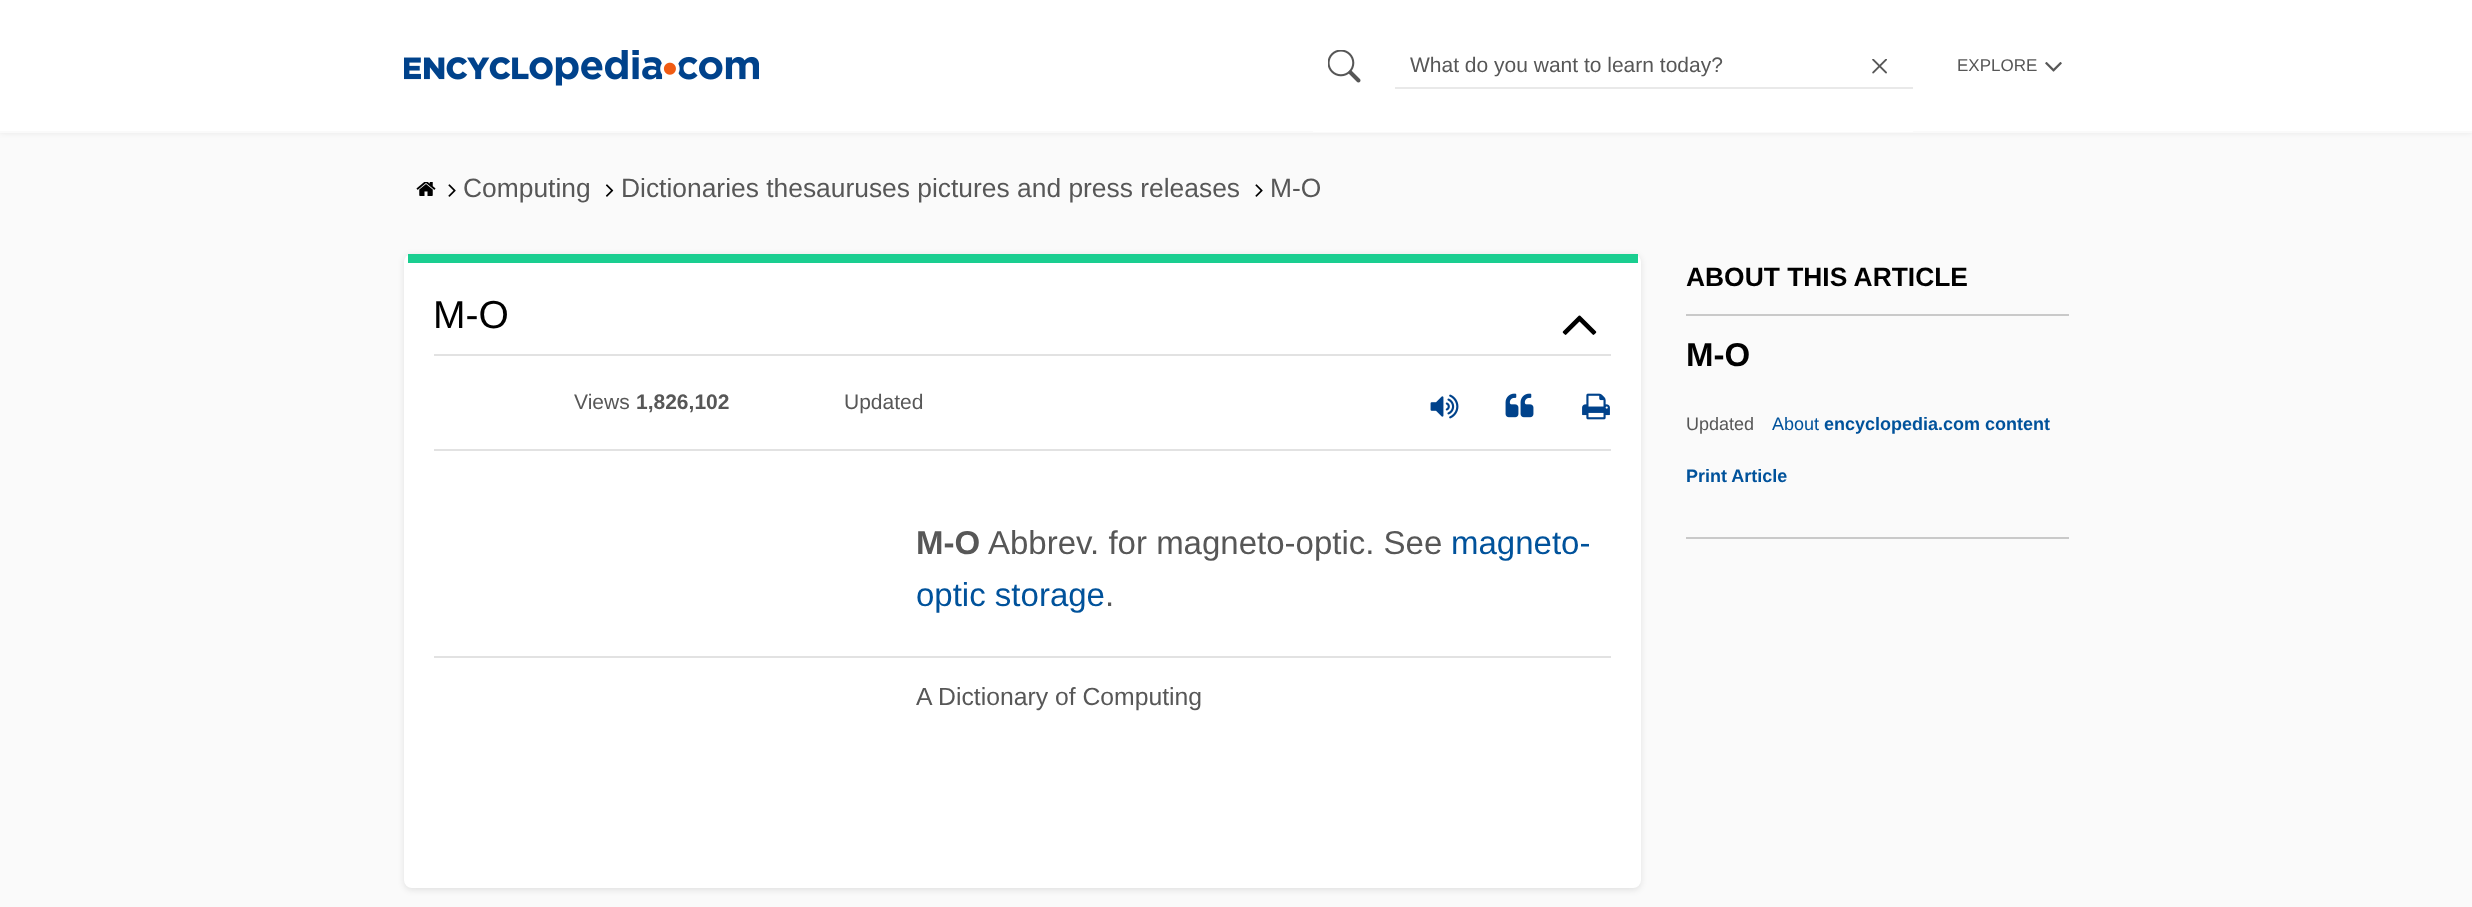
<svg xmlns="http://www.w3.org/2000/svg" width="2472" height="907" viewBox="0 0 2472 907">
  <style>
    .t1 { font: 21px Liberation Sans; fill: #575757; }
    .t2 { font: 17px Liberation Sans; fill: #575757; }
    .t3 { font: 26.4px Liberation Sans; fill: #575757; }
    .t4 { font: 39px Liberation Sans; fill: #000; }
    .t5 { font: bold 21px Liberation Sans; fill: #575757; }
    .t6 { font: bold 33px Liberation Sans; fill: #575757; }
    .t7 { font: 33px Liberation Sans; fill: #575757; }
    .t8 { font: 33px Liberation Sans; fill: #00529b; }
    .t9 { font: 24.75px Liberation Sans; fill: #575757; }
    .t10 { font: bold 26.4px Liberation Sans; fill: #000; }
    .t11 { font: bold 33px Liberation Sans; fill: #000; }
    .t12 { font: 18px Liberation Sans; fill: #575757; }
    .t13 { font: 18px Liberation Sans; fill: #00529b; }
    .t14 { font: bold 18px Liberation Sans; fill: #00529b; }
  </style>
  <rect width="100%" height="100%" fill="#fafafa"/>
  <rect x="0" y="0" width="2472" height="132" fill="#0000001a" filter="blur(3px)"/>
  <rect x="0" y="0" width="2472" height="131" fill="#fff"/>
  <rect x="0" y="131" width="2472" height="2" fill="#fafafa"/>
  <image x="404" y="50" width="355" height="36" href="images/1.png"/>
  <rect x="1313" y="131" width="600" height="1" fill="#fff"/>
  <image x="1328" y="50" width="33" height="33" href="images/2.png"/>
  <rect x="1395" y="87" width="518" height="2" fill="#e9e9e9"/>
  <text x="1410" y="72" class="t1">What do you want to learn today?</text>
  <image x="1872" y="59" width="15" height="15" href="images/3.png"/>
  <text x="1957" y="71" class="t2">EXPLORE</text>
  <image x="2045" y="62" width="17" height="10" href="images/4.png"/>
  <image x="416" y="182" width="20" height="14" href="images/5.png"/>
  <image x="448" y="184" width="8" height="13" href="images/6.png"/>
  <text x="463" y="197" class="t3">Computing</text>
  <image x="605" y="184" width="9" height="13" href="images/7.png"/>
  <text x="621" y="197" class="t3">Dictionaries thesauruses pictures and press releases</text>
  <image x="1255" y="184" width="8" height="13" href="images/6.png"/>
  <text x="1270" y="197" class="t3">M-O</text>
  <rect x="404" y="255" width="1237" height="635" rx="8" fill="#0000001a" filter="blur(3px)"/>
  <rect x="404" y="254" width="1237" height="634" rx="8" fill="#fff"/>
  <rect x="408" y="254" width="1230" height="9" fill="#1ace90"/>
  <text x="433" y="328" class="t4">M-O</text>
  <image x="1562" y="315" width="35" height="20" href="images/8.png"/>
  <rect x="434" y="354" width="1177" height="2" fill="#e2e2e2"/>
  <rect x="434" y="449" width="1177" height="2" fill="#e2e2e2"/>
  <text x="574" y="409" class="t1">Views</text>
  <text x="636" y="409" class="t5">1,826,102</text>
  <text x="844" y="409" class="t1">Updated</text>
  <image x="1430" y="394" width="29" height="25" href="images/9.png"/>
  <image x="1505" y="393" width="29" height="25" href="images/10.png"/>
  <image x="1582" y="393" width="28" height="27" href="images/11.png"/>
  <rect x="434" y="656" width="1177" height="2" fill="#e2e2e2"/>
  <text x="916" y="554" class="t6">M-O</text>
  <text x="988" y="554" class="t7">Abbrev. for magneto-optic. See</text>
  <text x="1451" y="554" class="t8">magneto-</text>
  <text x="916" y="606" class="t8">optic storage</text>
  <text x="1105" y="606" class="t7">.</text>
  <text x="916" y="705" class="t9">A Dictionary of Computing</text>
  <rect x="1686" y="537" width="383" height="2" fill="#c9c9c9"/>
  <rect x="1686" y="314" width="383" height="2" fill="#c9c9c9"/>
  <text x="1686" y="286" class="t10">ABOUT THIS ARTICLE</text>
  <text x="1686" y="366" class="t11">M-O</text>
  <text x="1686" y="430" class="t12">Updated</text>
  <text x="1772" y="430" class="t13">About</text>
  <text x="1824" y="430" class="t14">encyclopedia.com content</text>
  <text x="1686" y="482" class="t14">Print Article</text>
</svg>
